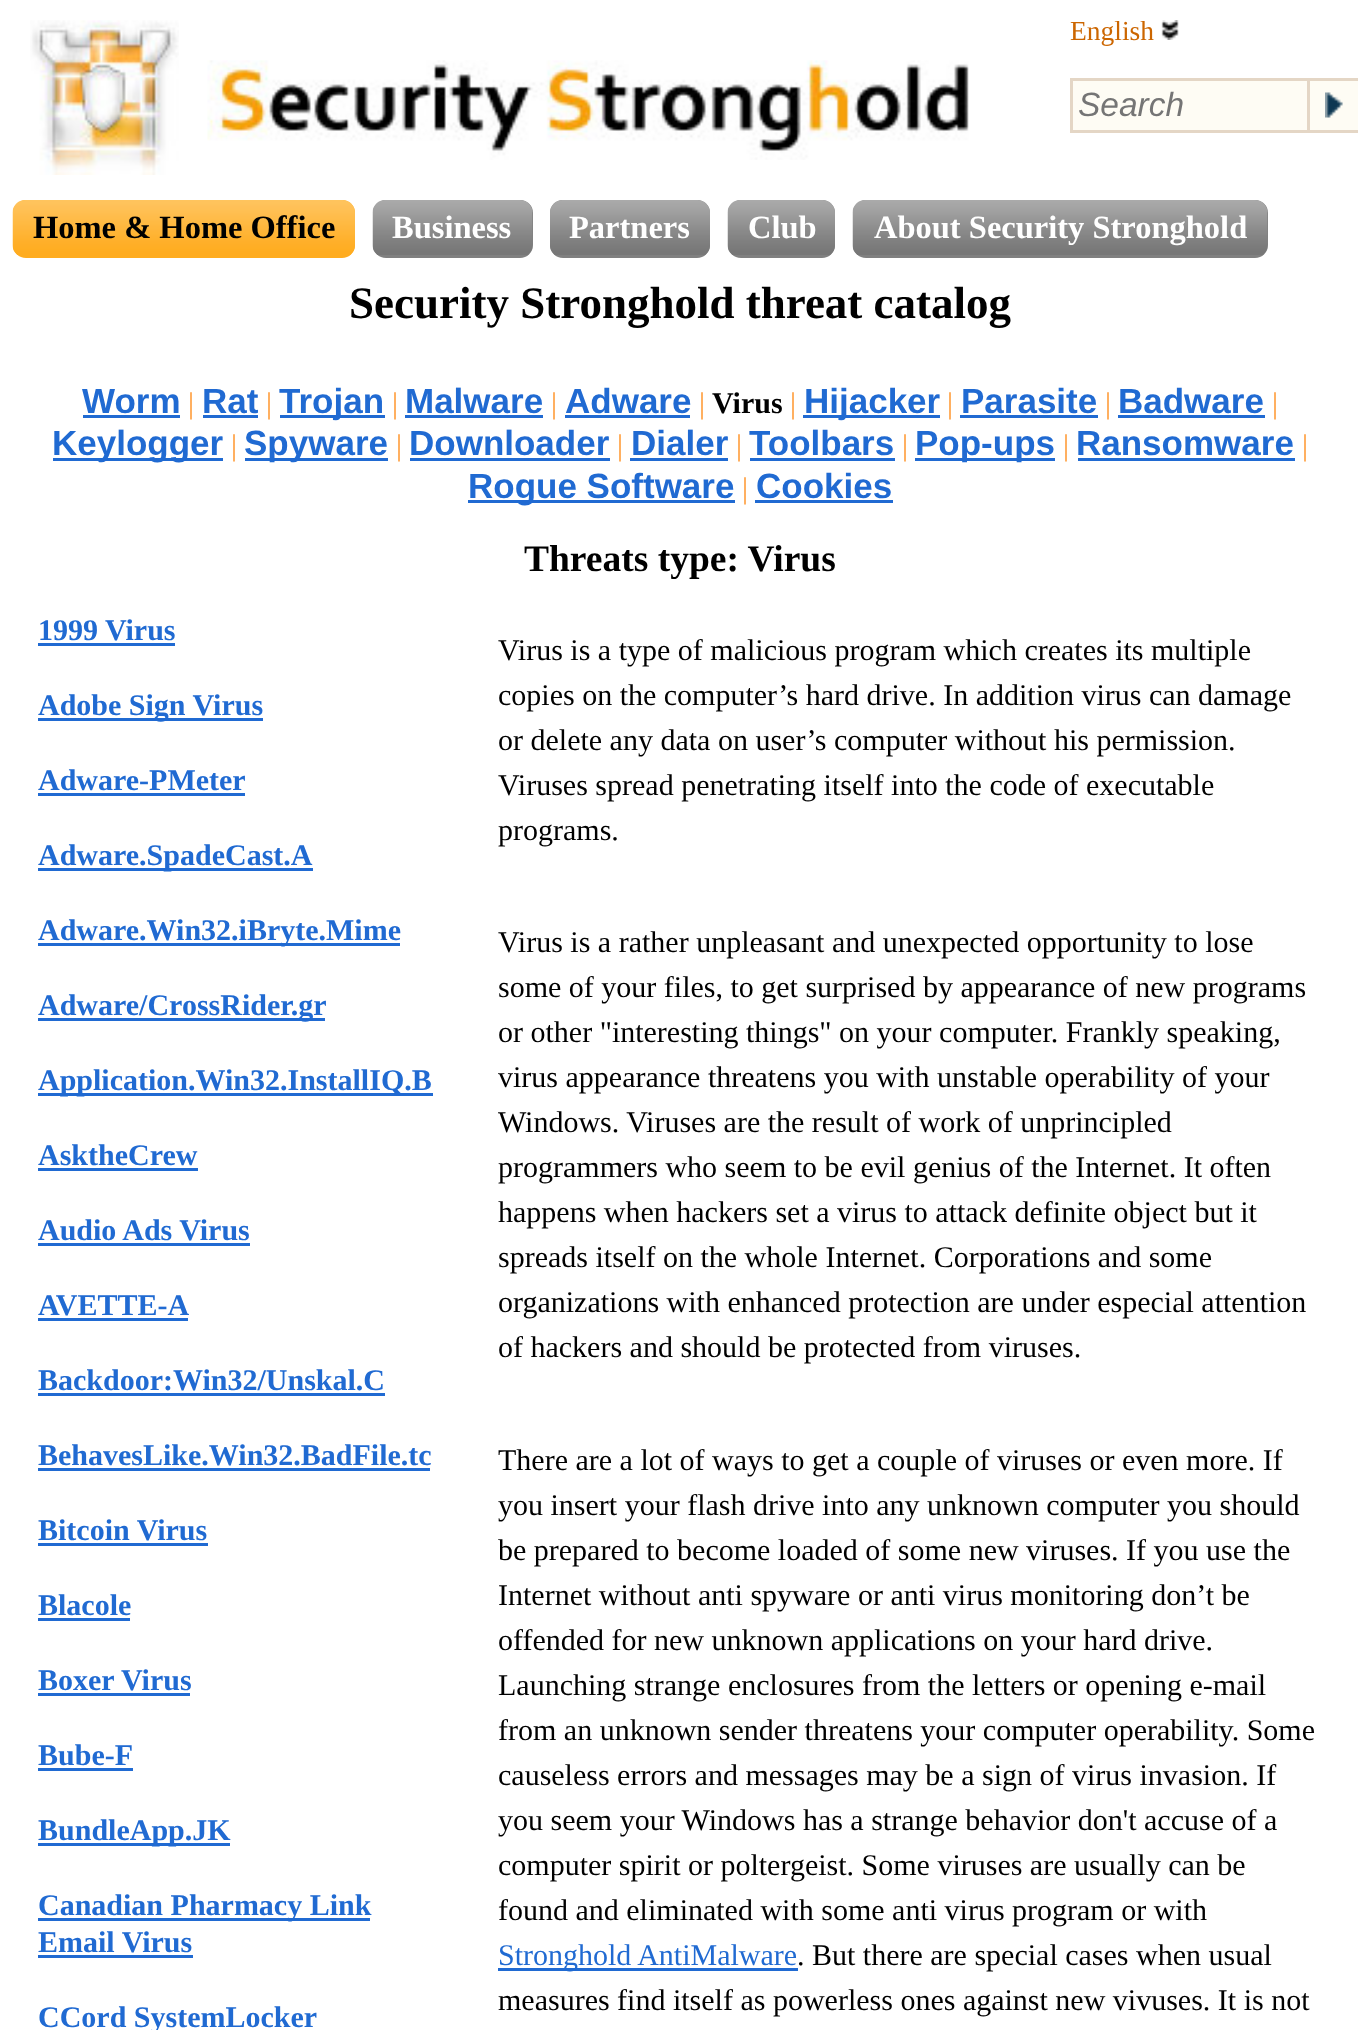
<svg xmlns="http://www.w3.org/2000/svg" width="1358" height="2030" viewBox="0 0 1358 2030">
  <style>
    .t1 { font: 27.5px Liberation Serif; fill: #c60; }
    .t2 { font: italic 33.5px Liberation Sans; fill: #757575; }
    .t3 { font: bold 32.5px Liberation Serif; fill: #000; }
    .t4 { font: bold 32.5px Liberation Serif; fill: #fff; }
    .t5 { font: bold 45px Liberation Serif; fill: #000; }
    .t6 { font: bold 35px Liberation Sans; fill: #206ad2; }
    .t7 { font: 30px Liberation Serif; fill: #f93; }
    .t8 { font: bold 30px Liberation Serif; fill: #000; }
    .t9 { font: bold 37.5px Liberation Serif; fill: #000; }
    .t10 { font: bold 30px Liberation Serif; fill: #206ad2; }
    .t11 { font: 30px Liberation Serif; fill: #000; }
    .t12 { font: 30px Liberation Serif; fill: #206ad2; }
  </style>
  <rect width="100%" height="100%" fill="#fff"/>
  <image x="30" y="20" width="149" height="155" href="images/1.png"/>
  <image x="207" y="60" width="762" height="100" href="images/2.png"/>
  <text x="1070" y="40" class="t1">English</text>
  <image x="1161" y="20" width="18" height="20" href="images/3.png"/>
  <rect x="1071.5" y="79.5" width="237" height="52" fill="#fefcf4" stroke="#e4d6c5" stroke-width="3"/>
  <text x="1078" y="116" class="t2">Search</text>
  <rect x="1310" y="81" width="48" height="49" fill="#fefcf4"/>
  <image x="1325" y="92" width="18" height="26" href="images/4.png"/>
  <rect x="1310" y="78" width="48" height="3" fill="#e4d6c5"/>
  <rect x="1310" y="130" width="48" height="3" fill="#e4d6c5"/>
  <rect x="13" y="200" width="342" height="58" rx="13" fill="#ffac1f"/>
  <image x="12" y="200" width="343" height="55" href="images/5.png"/>
  <text x="33" y="238" class="t3">Home &amp; Home Office</text>
  <rect x="373" y="200" width="160" height="58" rx="13" fill="#808080"/>
  <image x="372" y="200" width="161" height="55" href="images/6.png"/>
  <text x="392" y="238" class="t4">Business</text>
  <rect x="550" y="200" width="160" height="58" rx="13" fill="#808080"/>
  <image x="550" y="200" width="160" height="55" href="images/7.png"/>
  <text x="569" y="238" class="t4">Partners</text>
  <rect x="728" y="200" width="107" height="58" rx="13" fill="#808080"/>
  <image x="727" y="200" width="108" height="55" href="images/8.png"/>
  <text x="748" y="238" class="t4">Club</text>
  <rect x="853" y="200" width="415" height="58" rx="13" fill="#808080"/>
  <image x="852" y="200" width="416" height="55" href="images/9.png"/>
  <text x="874" y="238" class="t4">About Security Stronghold</text>
  <text x="349" y="318" class="t5">Security Stronghold threat catalog</text>
  <text x="82" y="413" class="t6">Worm</text>
  <rect x="83" y="415" width="97" height="3" fill="#206ad2"/>
  <text x="188" y="413" class="t7">|</text>
  <text x="202" y="413" class="t6">Rat</text>
  <rect x="203" y="415" width="55" height="3" fill="#206ad2"/>
  <text x="266" y="413" class="t7">|</text>
  <rect x="280" y="415" width="105" height="3" fill="#206ad2"/>
  <text x="279" y="413" class="t6">Trojan</text>
  <text x="392" y="413" class="t7">|</text>
  <text x="405" y="413" class="t6">Malware</text>
  <rect x="405" y="415" width="138" height="3" fill="#206ad2"/>
  <text x="551" y="413" class="t7">|</text>
  <text x="565" y="413" class="t6">Adware</text>
  <rect x="565" y="415" width="125" height="3" fill="#206ad2"/>
  <text x="699" y="413" class="t7">|</text>
  <text x="712" y="413" class="t8">Virus</text>
  <text x="790" y="413" class="t7">|</text>
  <rect x="803" y="415" width="137" height="3" fill="#206ad2"/>
  <text x="804" y="413" class="t6">Hijacker</text>
  <text x="947" y="413" class="t7">|</text>
  <text x="961" y="413" class="t6">Parasite</text>
  <rect x="960" y="415" width="138" height="3" fill="#206ad2"/>
  <text x="1105" y="413" class="t7">|</text>
  <text x="1118" y="413" class="t6">Badware</text>
  <rect x="1118" y="415" width="147" height="3" fill="#206ad2"/>
  <text x="1272" y="413" class="t7">|</text>
  <rect x="53" y="458" width="170" height="3" fill="#206ad2"/>
  <text x="52" y="455" class="t6">Keylogger</text>
  <text x="231" y="455" class="t7">|</text>
  <rect x="245" y="458" width="143" height="3" fill="#206ad2"/>
  <text x="244" y="455" class="t6">Spyware</text>
  <text x="396" y="455" class="t7">|</text>
  <text x="409" y="455" class="t6">Downloader</text>
  <rect x="410" y="458" width="200" height="3" fill="#206ad2"/>
  <text x="617" y="455" class="t7">|</text>
  <text x="631" y="455" class="t6">Dialer</text>
  <rect x="630" y="458" width="98" height="3" fill="#206ad2"/>
  <text x="736" y="455" class="t7">|</text>
  <text x="749" y="455" class="t6">Toolbars</text>
  <rect x="750" y="458" width="145" height="3" fill="#206ad2"/>
  <text x="902" y="455" class="t7">|</text>
  <rect x="915" y="458" width="140" height="3" fill="#206ad2"/>
  <text x="915" y="455" class="t6">Pop-ups</text>
  <text x="1063" y="455" class="t7">|</text>
  <text x="1076" y="455" class="t6">Ransomware</text>
  <rect x="1078" y="458" width="217" height="3" fill="#206ad2"/>
  <text x="1302" y="455" class="t7">|</text>
  <rect x="468" y="500" width="267" height="3" fill="#206ad2"/>
  <text x="468" y="498" class="t6">Rogue Software</text>
  <text x="742" y="498" class="t7">|</text>
  <text x="756" y="498" class="t6">Cookies</text>
  <rect x="755" y="500" width="138" height="3" fill="#206ad2"/>
  <text x="524" y="571" class="t9">Threats type: Virus</text>
  <text x="38" y="640" class="t10">1999 Virus</text>
  <rect x="38" y="643" width="137" height="3" fill="#206ad2"/>
  <rect x="38" y="718" width="225" height="3" fill="#206ad2"/>
  <text x="38" y="715" class="t10">Adobe Sign Virus</text>
  <text x="38" y="790" class="t10">Adware-PMeter</text>
  <rect x="38" y="793" width="207" height="3" fill="#206ad2"/>
  <rect x="38" y="868" width="275" height="3" fill="#206ad2"/>
  <text x="38" y="865" class="t10">Adware.SpadeCast.A</text>
  <rect x="38" y="943" width="362" height="3" fill="#206ad2"/>
  <text x="38" y="940" class="t10">Adware.Win32.iBryte.Mime</text>
  <rect x="38" y="1018" width="287" height="3" fill="#206ad2"/>
  <text x="38" y="1015" class="t10">Adware/CrossRider.gr</text>
  <rect x="38" y="1093" width="395" height="3" fill="#206ad2"/>
  <text x="38" y="1090" class="t10">Application.Win32.InstallIQ.B</text>
  <text x="38" y="1165" class="t10">AsktheCrew</text>
  <rect x="38" y="1168" width="160" height="3" fill="#206ad2"/>
  <text x="38" y="1240" class="t10">Audio Ads Virus</text>
  <rect x="38" y="1243" width="212" height="3" fill="#206ad2"/>
  <text x="38" y="1315" class="t10">AVETTE-A</text>
  <rect x="38" y="1318" width="150" height="3" fill="#206ad2"/>
  <text x="38" y="1390" class="t10">Backdoor:Win32/Unskal.C</text>
  <rect x="38" y="1393" width="347" height="3" fill="#206ad2"/>
  <text x="38" y="1465" class="t10">BehavesLike.Win32.BadFile.tc</text>
  <rect x="38" y="1468" width="392" height="3" fill="#206ad2"/>
  <text x="38" y="1540" class="t10">Bitcoin Virus</text>
  <rect x="38" y="1543" width="170" height="3" fill="#206ad2"/>
  <text x="38" y="1615" class="t10">Blacole</text>
  <rect x="38" y="1618" width="92" height="3" fill="#206ad2"/>
  <text x="38" y="1690" class="t10">Boxer Virus</text>
  <rect x="38" y="1693" width="152" height="3" fill="#206ad2"/>
  <text x="38" y="1765" class="t10">Bube-F</text>
  <rect x="38" y="1768" width="95" height="3" fill="#206ad2"/>
  <rect x="38" y="1843" width="192" height="3" fill="#206ad2"/>
  <text x="38" y="1840" class="t10">BundleApp.JK</text>
  <rect x="38" y="1918" width="332" height="3" fill="#206ad2"/>
  <text x="38" y="1915" class="t10">Canadian Pharmacy Link</text>
  <text x="38" y="1952" class="t10">Email Virus</text>
  <rect x="38" y="1955" width="155" height="3" fill="#206ad2"/>
  <text x="38" y="2027" class="t10">CCord SystemLocker</text>
  <text x="498" y="660" class="t11">Virus is a type of malicious program which creates its multiple</text>
  <text x="498" y="705" class="t11">copies on the computer’s hard drive. In addition virus can damage</text>
  <text x="498" y="750" class="t11">or delete any data on user’s computer without his permission.</text>
  <text x="498" y="795" class="t11">Viruses spread penetrating itself into the code of executable</text>
  <text x="498" y="840" class="t11">programs.</text>
  <text x="498" y="952" class="t11">Virus is a rather unpleasant and unexpected opportunity to lose</text>
  <text x="498" y="997" class="t11">some of your files, to get surprised by appearance of new programs</text>
  <text x="498" y="1042" class="t11">or other "interesting things" on your computer. Frankly speaking,</text>
  <text x="498" y="1087" class="t11">virus appearance threatens you with unstable operability of your</text>
  <text x="498" y="1132" class="t11">Windows. Viruses are the result of work of unprincipled</text>
  <text x="498" y="1177" class="t11">programmers who seem to be evil genius of the Internet. It often</text>
  <text x="498" y="1222" class="t11">happens when hackers set a virus to attack definite object but it</text>
  <text x="498" y="1267" class="t11">spreads itself on the whole Internet. Corporations and some</text>
  <text x="498" y="1312" class="t11">organizations with enhanced protection are under especial attention</text>
  <text x="498" y="1357" class="t11">of hackers and should be protected from viruses.</text>
  <text x="498" y="1470" class="t11">There are a lot of ways to get a couple of viruses or even more. If</text>
  <text x="498" y="1515" class="t11">you insert your flash drive into any unknown computer you should</text>
  <text x="498" y="1560" class="t11">be prepared to become loaded of some new viruses. If you use the</text>
  <text x="498" y="1605" class="t11">Internet without anti spyware or anti virus monitoring don’t be</text>
  <text x="498" y="1650" class="t11">offended for new unknown applications on your hard drive.</text>
  <text x="498" y="1695" class="t11">Launching strange enclosures from the letters or opening e-mail</text>
  <text x="498" y="1740" class="t11">from an unknown sender threatens your computer operability. Some</text>
  <text x="498" y="1785" class="t11">causeless errors and messages may be a sign of virus invasion. If</text>
  <text x="498" y="1830" class="t11">you seem your Windows has a strange behavior don't accuse of a</text>
  <text x="498" y="1875" class="t11">computer spirit or poltergeist. Some viruses are usually can be</text>
  <text x="498" y="1920" class="t11">found and eliminated with some anti virus program or with</text>
  <rect x="498" y="1968" width="300" height="3" fill="#206ad2"/>
  <text x="498" y="1965" class="t12">Stronghold AntiMalware</text>
  <text x="797" y="1965" class="t11">. But there are special cases when usual</text>
  <text x="498" y="2010" class="t11">measures find itself as powerless ones against new vivuses. It is not</text>
</svg>
